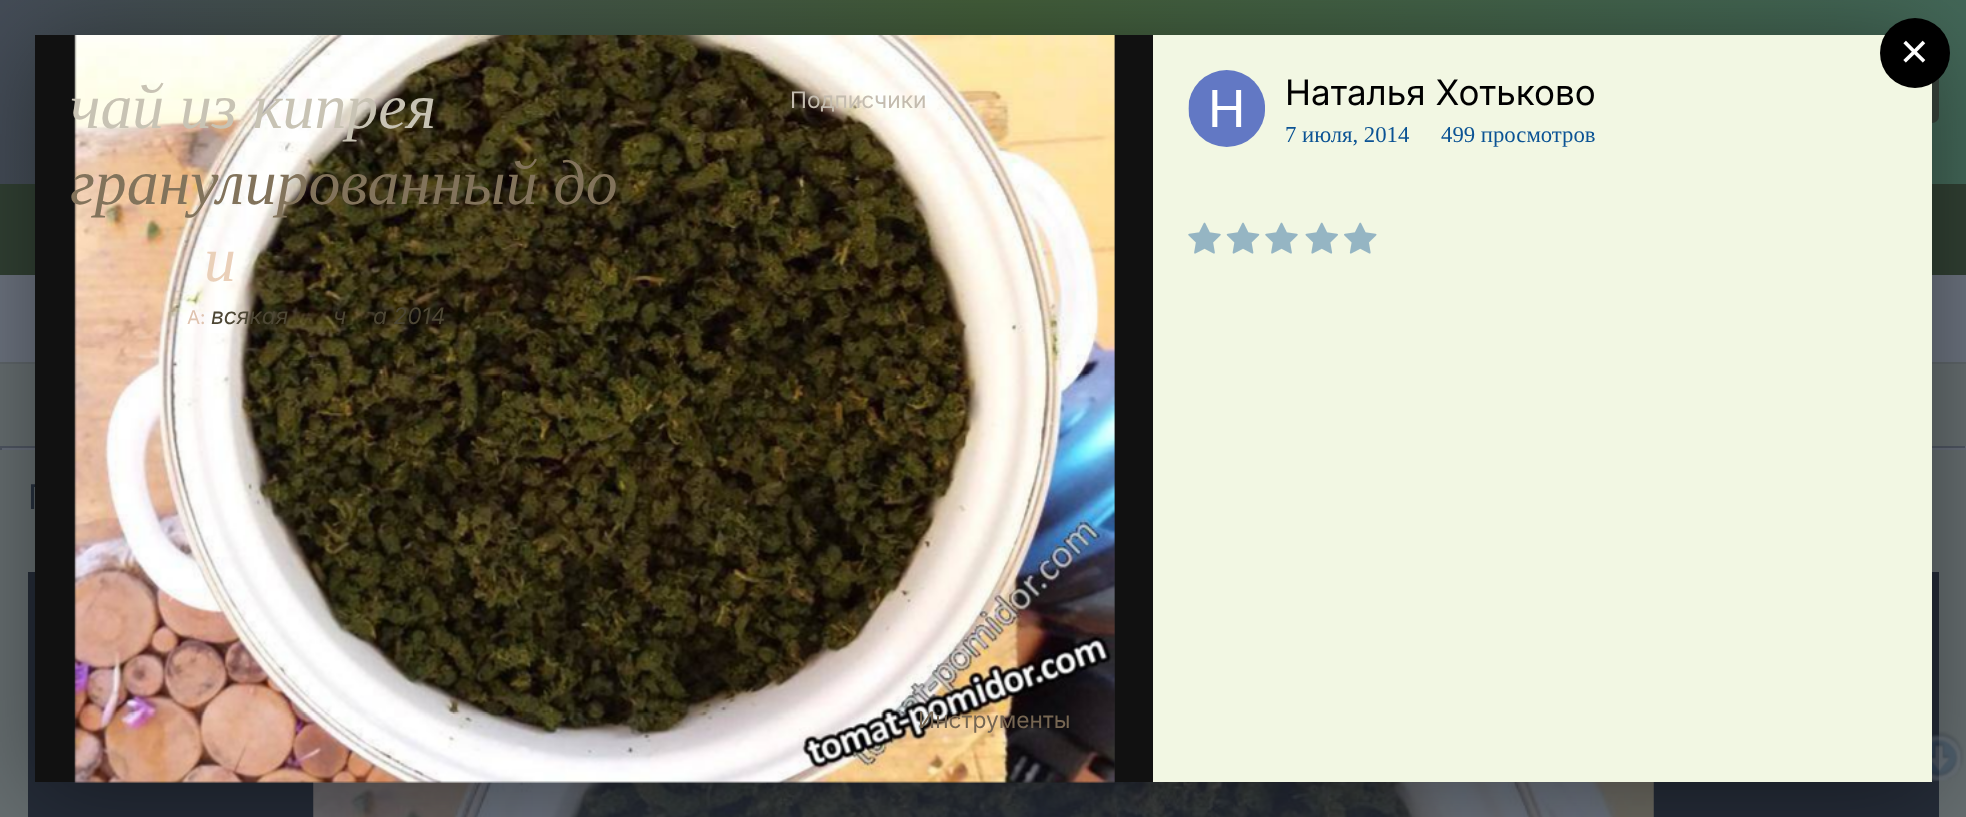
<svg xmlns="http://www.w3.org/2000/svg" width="1966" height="817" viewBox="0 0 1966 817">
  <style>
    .t1 { font: 49px Liberation Sans; fill: #fff; }
    .t2 { font: 34px Inter; fill: #1f2732; }
    .t3 { font: italic 63.75px Liberation Serif; fill: #c8c3b4; }
    .t4 { font: italic 63.75px Liberation Serif; fill: #82735b; }
    .t5 { font: italic 63.75px Liberation Serif; fill: #ead0b9; }
    .t6 { font: 19px Inter; fill: #dfc3af; }
    .t7 { font: italic 22.75px Inter; fill: #4d4735; }
    .t8 { font: 22.75px Inter; fill: #c4bcaf; }
    .t9 { font: 22.75px Inter; fill: #766652; }
    .t10 { font: 35px Inter; fill: #000; }
    .t11 { font: 22.75px Liberation Serif; fill: #0b5394; }
  </style>
  <defs>
    <linearGradient id="g1" gradientUnits="userSpaceOnUse" x1="0" y1="92" x2="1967" y2="92"><stop offset="0" stop-color="#444c57"/><stop offset="0.5" stop-color="#435e3a"/><stop offset="1" stop-color="#436758"/></linearGradient>
  </defs>
  <rect width="100%" height="100%" fill="#666e70"/>
  <rect x="0" y="362" width="1966" height="2" fill="#5f666a"/>
  <rect x="0" y="0" width="1966" height="184" fill="url(#g1)"/>
  <rect x="1722" y="61" width="217" height="62" rx="7" fill="#39443c"/>
  <rect x="0" y="184" width="1966" height="91" fill="#314033"/>
  <rect x="0" y="275" width="1966" height="87" fill="#6c737f"/>
  <rect x="0" y="446" width="1966" height="2" fill="#4f5662"/>
  <rect x="1965" y="446" width="1" height="4" fill="#676e7a"/>
  <rect x="0" y="448" width="1966" height="2" fill="#676e7a"/>
  <rect x="0" y="446" width="2" height="4" fill="#4f5662"/>
  <rect x="28" y="572" width="1911" height="245" fill="#252c38"/>
  <image x="313" y="782" width="1341" height="35" href="images/7.png"/>
  <image x="1932" y="731" width="32" height="51" href="images/8.png"/>
  <rect x="35" y="44" width="1897" height="747" fill="#00000066" filter="blur(48px)"/>
  <rect x="1153" y="35" width="779" height="747" fill="#f2f7e3"/>
  <circle cx="1915" cy="53" r="35" fill="#000"/>
  <text x="1900" y="68" class="t1">×</text>
  <text x="28" y="509" class="t2">Г</text>
  <rect x="35" y="35" width="1118" height="747" fill="#111"/>
  <rect x="75" y="35" width="1040" height="747" fill="#222"/>
  <image x="74" y="35" width="1041" height="748" href="images/1.png"/>
  <text x="70" y="128" class="t3">чай из кипрея</text>
  <text x="70" y="204" class="t4">гранулированный до</text>
  <text x="204" y="281" class="t5">и</text>
  <text x="187" y="324" class="t6">А:</text>
  <text x="211" y="324" class="t7">всякая</text>
  <text x="333" y="324" class="t7">ч</text>
  <text x="373" y="324" class="t7">а 2014</text>
  <text x="790" y="108" class="t8">Подписчики</text>
  <text x="918" y="728" class="t9">Инструменты</text>
  <image x="1188" y="70" width="77" height="77" href="images/2.png"/>
  <text x="1285" y="105" class="t10">Наталья Хотьково</text>
  <text x="1285" y="142" class="t11">7 июля, 2014</text>
  <text x="1441" y="142" class="t11">499 просмотров</text>
  <image x="1188" y="222" width="33" height="32" href="images/3.png"/>
  <image x="1226" y="222" width="34" height="32" href="images/4.png"/>
  <image x="1265" y="222" width="33" height="32" href="images/3.png"/>
  <image x="1305" y="222" width="33" height="32" href="images/5.png"/>
  <image x="1344" y="222" width="33" height="32" href="images/6.png"/>
</svg>
